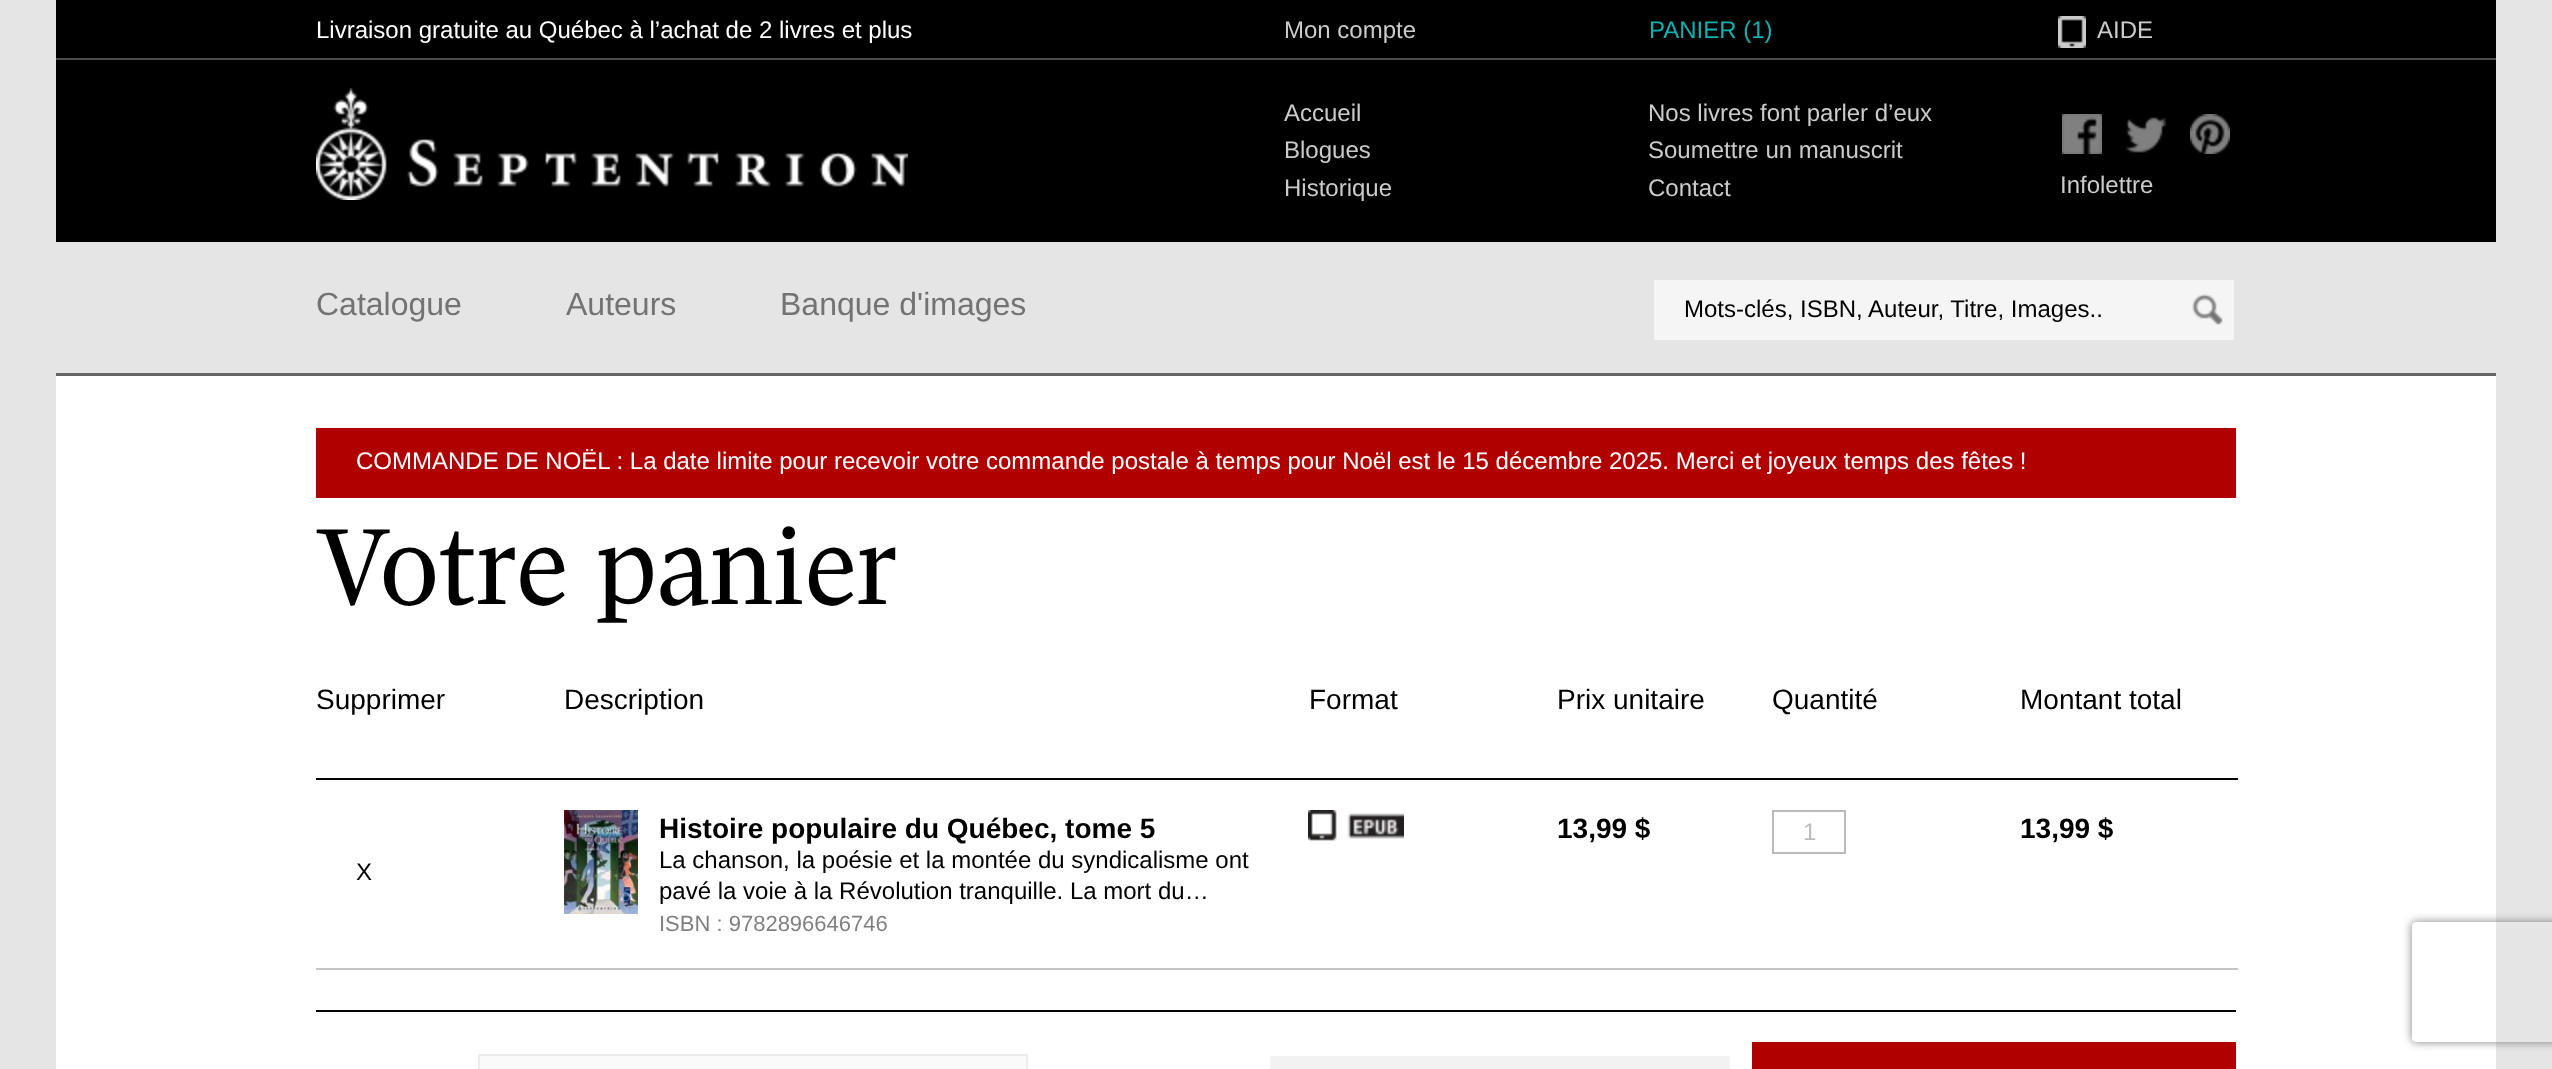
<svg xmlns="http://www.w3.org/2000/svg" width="2552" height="1069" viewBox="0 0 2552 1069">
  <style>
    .t1 { font: 24px Liberation Sans; fill: #fff; }
    .t2 { font: 24px Liberation Sans; fill: #cbcbcb; }
    .t3 { font: 24px Liberation Sans; fill: #14b0b0; }
    .t4 { font: 32px Liberation Sans; fill: #737373; }
    .t5 { font: 24px Liberation Sans; fill: #000; }
    .t6 { font: 110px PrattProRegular; fill: #000; }
    .t7 { font: 28px Liberation Sans; fill: #000; }
    .t8 { font: bold 28px Liberation Sans; fill: #000; }
    .t9 { font: 22px Liberation Sans; fill: #808080; }
    .t10 { font: 24px Liberation Sans; fill: #bbb; }
  </style>
  <defs>
    <clipPath id="clip1"><path d="M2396 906H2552V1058H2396ZM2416 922H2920C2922 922 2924 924 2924 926V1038C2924 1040 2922 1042 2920 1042H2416C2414 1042 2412 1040 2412 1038V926C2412 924 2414 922 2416 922Z" clip-rule="evenodd"/></clipPath>
  </defs>
  <rect width="100%" height="100%" fill="#e5e5e5"/>
  <rect x="56" y="0" width="2440" height="58" fill="#000"/>
  <rect x="56" y="58" width="2440" height="2" fill="#4d4d4d"/>
  <text x="316" y="38" class="t1">Livraison gratuite au Québec à l’achat de 2 livres et plus</text>
  <text x="1284" y="38" class="t2">Mon compte</text>
  <text x="1649" y="38" class="t3">PANIER (1)</text>
  <image x="2058" y="16" width="28" height="32" href="images/1.png"/>
  <text x="2097" y="38" class="t2">AIDE</text>
  <rect x="56" y="60" width="2440" height="182" fill="#000"/>
  <image x="316" y="88" width="592" height="112" href="images/2.png"/>
  <text x="1284" y="121" class="t2">Accueil</text>
  <text x="1648" y="121" class="t2">Nos livres font parler d’eux</text>
  <text x="1284" y="158" class="t2">Blogues</text>
  <text x="1648" y="158" class="t2">Soumettre un manuscrit</text>
  <text x="1284" y="196" class="t2">Historique</text>
  <text x="1648" y="196" class="t2">Contact</text>
  <image x="2062" y="114" width="40" height="40" href="images/3.png"/>
  <image x="2126" y="117" width="40" height="36" href="images/4.png"/>
  <image x="2190" y="114" width="40" height="40" href="images/5.png"/>
  <text x="2060" y="193" class="t2">Infolettre</text>
  <rect x="56" y="373" width="2440" height="3" fill="#656565"/>
  <text x="316" y="315" class="t4">Catalogue</text>
  <text x="566" y="315" class="t4">Auteurs</text>
  <text x="780" y="315" class="t4">Banque d'images</text>
  <rect x="1654" y="280" width="580" height="60" fill="#f5f5f5"/>
  <text x="1684" y="317" class="t5">Mots-clés, ISBN, Auteur, Titre, Images..</text>
  <image x="2192" y="294" width="31" height="31" href="images/6.png"/>
  <rect x="56" y="376" width="2440" height="693" fill="#fff"/>
  <rect x="316" y="428" width="1920" height="70" fill="#b10000"/>
  <text x="356" y="469" class="t1">COMMANDE DE NOËL : La date limite pour recevoir votre commande postale à temps pour Noël est le 15 décembre 2025. Merci et joyeux temps des fêtes !</text>
  <text x="316" y="604" class="t6">Votre panier</text>
  <text x="316" y="709" class="t7">Supprimer</text>
  <text x="564" y="709" class="t7">Description</text>
  <text x="1309" y="709" class="t7">Format</text>
  <text x="1557" y="709" class="t7">Prix unitaire</text>
  <text x="1772" y="709" class="t7">Quantité</text>
  <rect x="316" y="778" width="1922" height="2" fill="#000"/>
  <text x="2020" y="709" class="t7">Montant total</text>
  <image x="564" y="810" width="74" height="104" href="images/7.png"/>
  <text x="659" y="838" class="t8">Histoire populaire du Québec, tome 5</text>
  <text x="659" y="868" class="t5">La chanson, la poésie et la montée du syndicalisme ont</text>
  <text x="659" y="899" class="t5">pavé la voie à la Révolution tranquille. La mort du…</text>
  <text x="659" y="931" class="t9">ISBN : 9782896646746</text>
  <image x="1308" y="810" width="96" height="31" href="images/8.png"/>
  <text x="1557" y="838" class="t8">13,99 $</text>
  <rect x="1773" y="811" width="72" height="42" fill="none" stroke="#bbb" stroke-width="2"/>
  <text x="1803" y="840" class="t10">1</text>
  <rect x="316" y="968" width="1922" height="2" fill="#c5c5c5"/>
  <text x="2020" y="838" class="t8">13,99 $</text>
  <text x="356" y="880" class="t5">X</text>
  <rect x="316" y="1010" width="1920" height="2" fill="#000"/>
  <rect x="479" y="1055" width="548" height="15" fill="#fafafa" stroke="#ebebeb" stroke-width="2"/>
  <rect x="1270" y="1056" width="460" height="13" fill="#f2f2f2"/>
  <rect x="1752" y="1042" width="484" height="27" fill="#b10000"/>
  <g clip-path="url(#clip1)">
    <rect x="2412" y="922" width="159" height="120" rx="4" fill="#808080" filter="blur(5px)"/>
  </g>
</svg>
